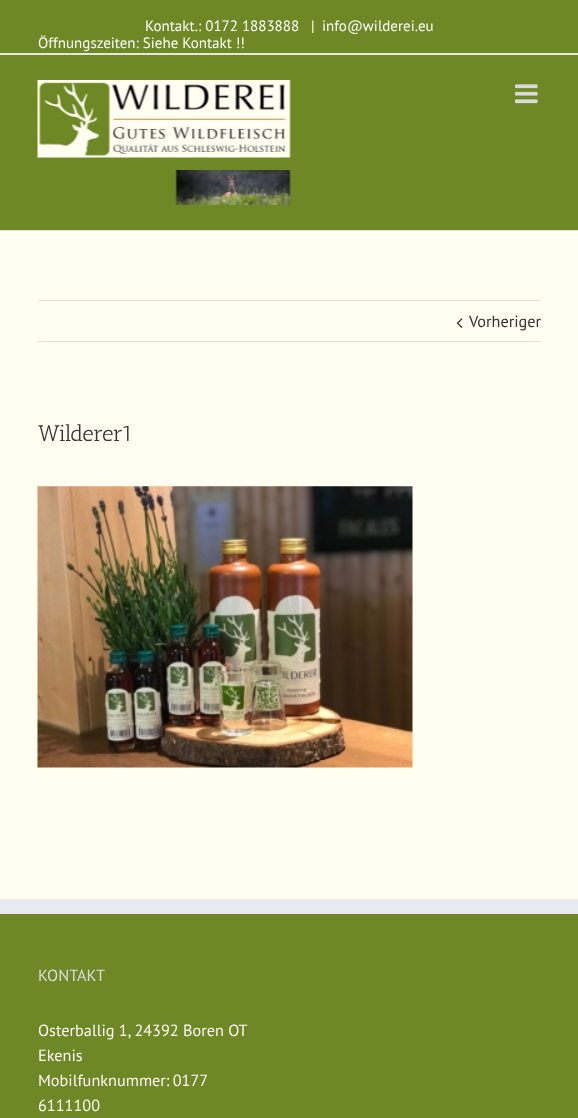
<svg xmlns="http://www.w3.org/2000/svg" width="578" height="1118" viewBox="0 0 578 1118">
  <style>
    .t1 { font: 15px PT Sans; fill: #fff; }
    .t2 { font: 16.25px PT Sans; fill: #333; }
    .t3 { font: 22.5px Antic Slab; fill: #333; }
    .t4 { font: 16.25px PT Sans; fill: #ddd; }
    .t5 { font: 16.25px PT Sans; fill: #fff9f9; }
  </style>
  <rect width="100%" height="100%" fill="#fffef1"/>
  <rect x="0" y="0" width="578" height="53" fill="#6e8825"/>
  <rect x="0" y="53" width="578" height="2" fill="#e5e5e5"/>
  <text x="145" y="31" class="t1">Kontakt.: 0172 1883888</text>
  <text x="311" y="31" class="t1">|</text>
  <text x="322" y="31" class="t1">info@wilderei.eu</text>
  <text x="38" y="48" class="t1">Öffnungszeiten: Siehe Kontakt !!</text>
  <rect x="0" y="55" width="578" height="175" fill="#6e8825"/>
  <rect x="0" y="230" width="578" height="1" fill="#e5e5e5"/>
  <image x="37" y="80" width="254" height="78" href="images/1.png"/>
  <image x="175" y="170" width="116" height="35" href="images/2.png"/>
  <image x="515" y="84" width="23" height="20" href="images/3.png"/>
  <rect x="38" y="300" width="503" height="1" fill="#e0dede"/>
  <rect x="38" y="341" width="503" height="1" fill="#e0dede"/>
  <image x="456" y="318" width="7" height="10" href="images/4.png"/>
  <text x="469" y="327" class="t2">Vorheriger</text>
  <text x="38" y="441" class="t3">Wilderer1</text>
  <image x="37" y="486" width="376" height="282" href="images/5.png"/>
  <rect x="0" y="914" width="578" height="204" fill="#6e8825"/>
  <rect x="0" y="899" width="578" height="15" fill="#e9eaee"/>
  <text x="38" y="981" class="t4">KONTAKT</text>
  <text x="38" y="1036" class="t5">Osterballig 1, 24392 Boren OT</text>
  <text x="38" y="1061" class="t5">Ekenis</text>
  <text x="38" y="1086" word-spacing="-1" class="t5">Mobilfunknummer: 0177</text>
  <text x="38" y="1111" class="t5">6111100</text>
</svg>
